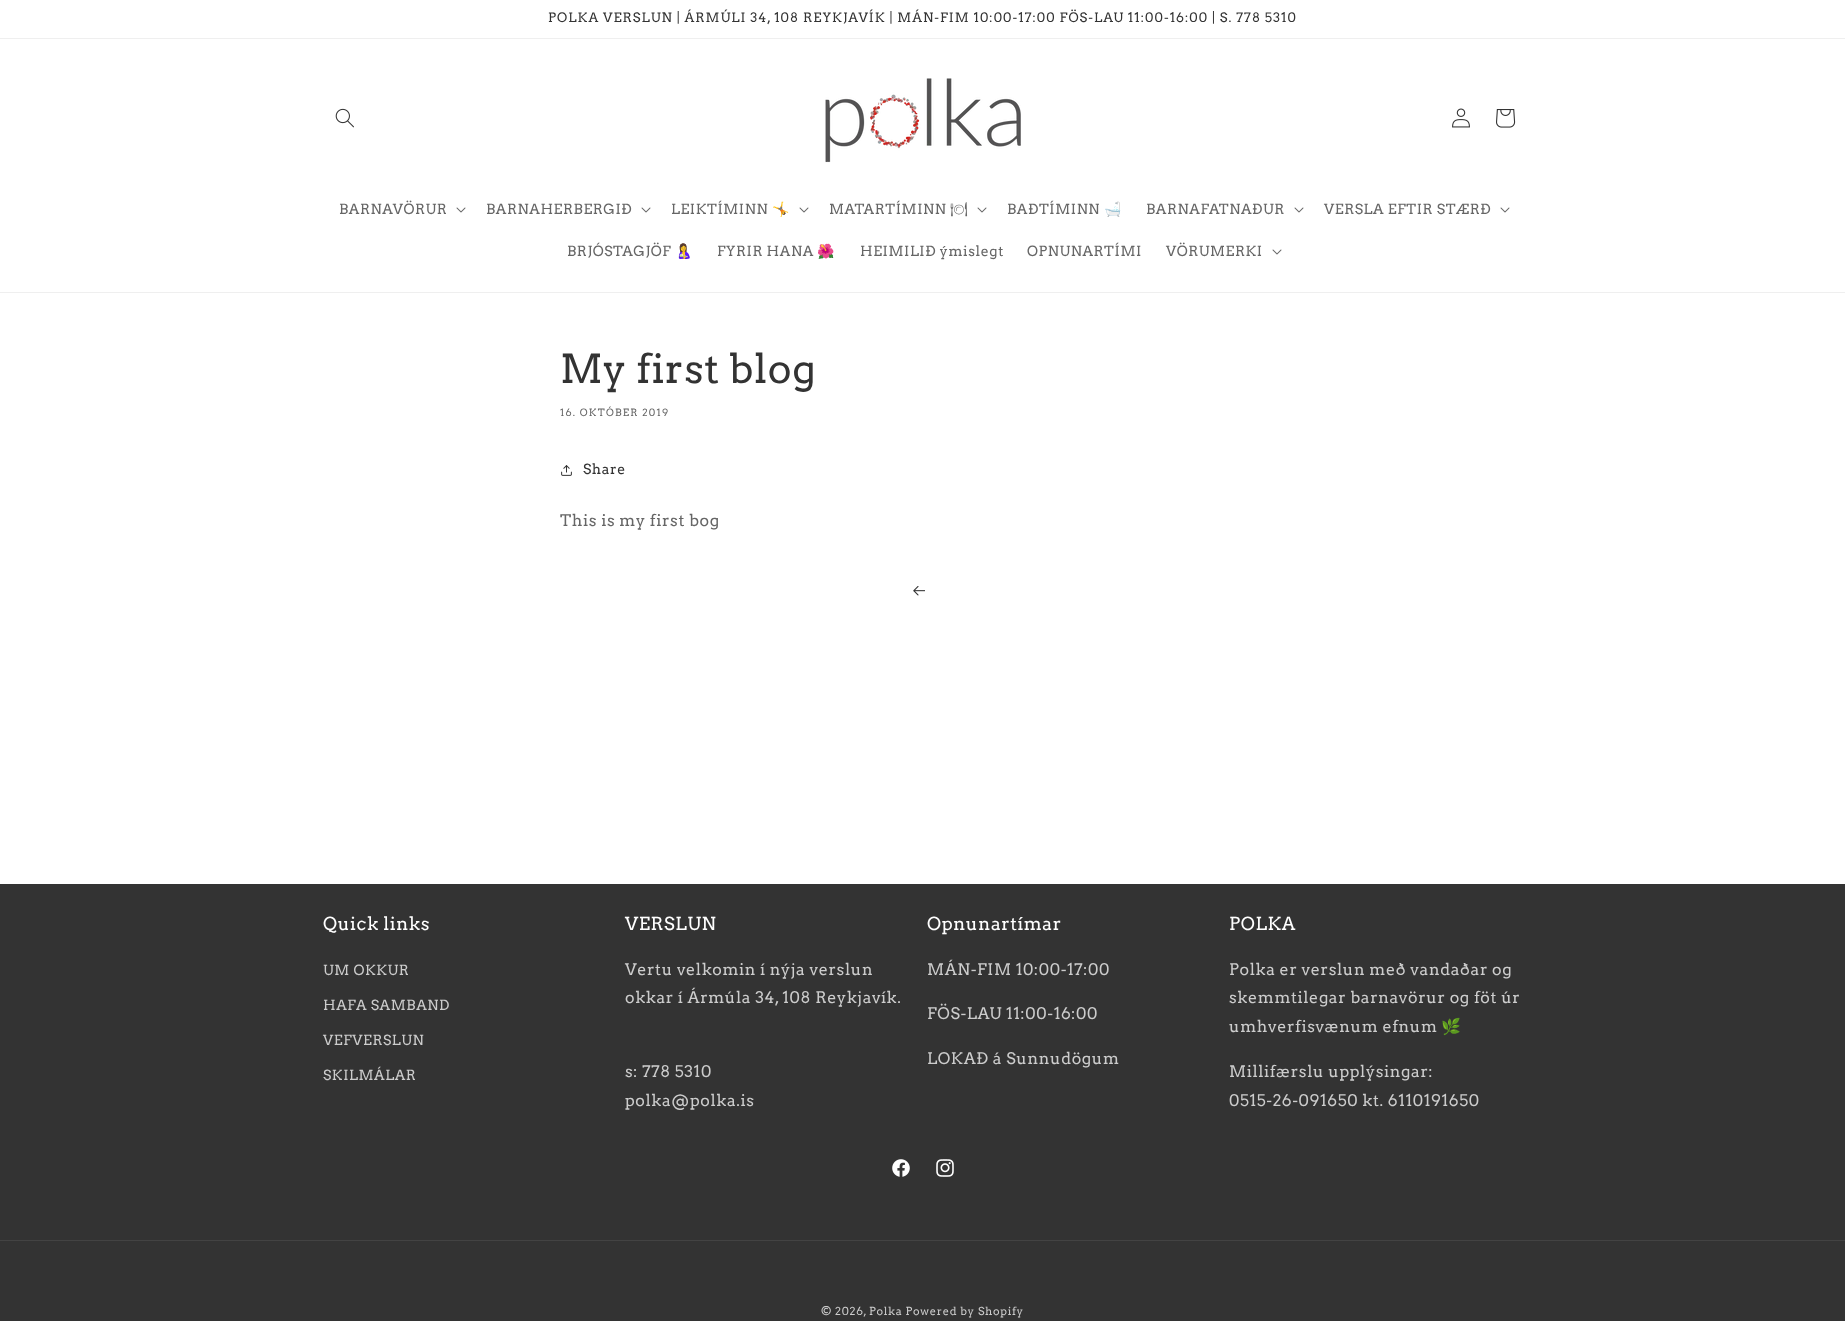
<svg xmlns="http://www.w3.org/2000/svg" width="1845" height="1321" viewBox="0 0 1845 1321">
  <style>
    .t1 { font: 13px Arvo; letter-spacing: 1px; fill: #333; }
    .t2 { font: 14px Arvo; letter-spacing: 0.6px; fill: #666; }
    .t3 { font: 14px Noto Color Emoji; letter-spacing: 0.6px; fill: #666; }
    .t4 { font: 14px Noto Emoji; letter-spacing: 0.6px; fill: #666; }
    .t5 { font: 40px Arvo; letter-spacing: 0.6px; fill: #333; }
    .t6 { font: 10px Arvo; letter-spacing: 1.25px; fill: #666; }
    .t7 { font: 14px Arvo; letter-spacing: 0.6px; fill: #333; }
    .t8 { font: 16px Arvo; letter-spacing: 0.6px; fill: #666; }
    .t9 { font: 18px Arvo; letter-spacing: 0.6px; fill: #fff; }
    .t10 { font: 14px Arvo; letter-spacing: 0.6px; fill: #ccc; }
    .t11 { font: 16px Arvo; letter-spacing: 0.6px; fill: #ccc; }
    .t12 { font: 16px Noto Color Emoji; letter-spacing: 0.6px; fill: #ccc; }
    .t13 { font: 11px Arvo; letter-spacing: 0.7px; fill: #ccc; }
  </style>
  <rect width="100%" height="100%" fill="#fff"/>
  <rect x="0" y="38" width="1845" height="1" fill="#efefef"/>
  <text x="548" y="22" class="t1">POLKA VERSLUN | ÁRMÚLI 34, 108 REYKJAVÍK | MÁN-FIM 10:00-17:00 FÖS-LAU 11:00-16:00 | S. 778 5310</text>
  <rect x="0" y="292" width="1845" height="1" fill="#efefef"/>
  <image x="335" y="108" width="19" height="20" href="images/1.png"/>
  <image x="825" y="78" width="196" height="85" href="images/2.png"/>
  <image x="1452" y="108" width="18" height="20" href="images/3.png"/>
  <image x="1496" y="109" width="20" height="19" href="images/4.png"/>
  <text x="339" y="214" class="t2">BARNAVÖRUR</text>
  <image x="456" y="207" width="10" height="6" href="images/5.png"/>
  <text x="486" y="214" class="t2">BARNAHERBERGIÐ</text>
  <image x="641" y="207" width="10" height="6" href="images/5.png"/>
  <text x="671" y="214" class="t2">LEIKTÍMINN</text>
  <text x="772" y="214" class="t3">🤸</text>
  <image x="799" y="207" width="10" height="6" href="images/5.png"/>
  <text x="829" y="214" class="t2">MATARTÍMINN</text>
  <text x="950" y="214" class="t4">🍽</text>
  <image x="977" y="207" width="10" height="6" href="images/5.png"/>
  <text x="1007" y="214" class="t2">BAÐTÍMINN</text>
  <text x="1104" y="214" class="t3">🛁</text>
  <text x="1146" y="214" class="t2">BARNAFATNAÐUR</text>
  <image x="1294" y="207" width="10" height="6" href="images/5.png"/>
  <text x="1324" y="214" class="t2">VERSLA EFTIR STÆRÐ</text>
  <image x="1500" y="207" width="10" height="6" href="images/5.png"/>
  <text x="567" y="256" class="t2">BRJÓSTAGJÖF</text>
  <text x="675" y="256" class="t3">🤱</text>
  <text x="717" y="256" class="t2">FYRIR HANA</text>
  <text x="817" y="256" class="t3">🌺</text>
  <text x="860" y="256" class="t2">HEIMILIÐ ýmislegt</text>
  <text x="1027" y="256" class="t2">OPNUNARTÍMI</text>
  <text x="1166" y="256" class="t2">VÖRUMERKI</text>
  <image x="1272" y="249" width="10" height="6" href="images/5.png"/>
  <text x="560" y="383" class="t5">My first blog</text>
  <text x="560" y="416" class="t6">16. OKTÓBER 2019</text>
  <image x="561" y="465" width="11" height="11" href="images/6.png"/>
  <text x="583" y="474" class="t7">Share</text>
  <text x="560" y="526" class="t8">This is my first bog</text>
  <image x="913" y="586" width="12" height="10" href="images/7.png"/>
  <rect x="0" y="884" width="1845" height="437" fill="#333"/>
  <text x="323" y="930" class="t9">Quick links</text>
  <text x="323" y="975" class="t10">UM OKKUR</text>
  <text x="323" y="1010" class="t10">HAFA SAMBAND</text>
  <text x="323" y="1045" class="t10">VEFVERSLUN</text>
  <text x="323" y="1080" class="t10">SKILMÁLAR</text>
  <text x="625" y="930" class="t9">VERSLUN</text>
  <text x="625" y="975" class="t11">Vertu velkomin í nýja verslun</text>
  <text x="625" y="1003" class="t11">okkar í Ármúla 34, 108 Reykjavík.</text>
  <text x="625" y="1077" class="t11">s: 778 5310</text>
  <text x="625" y="1106" class="t11">polka@polka.is</text>
  <text x="927" y="930" class="t9">Opnunartímar</text>
  <text x="927" y="975" class="t11">MÁN-FIM 10:00-17:00</text>
  <text x="927" y="1019" class="t11">FÖS-LAU 11:00-16:00</text>
  <text x="927" y="1064" class="t11">LOKAÐ á Sunnudögum</text>
  <text x="1229" y="930" class="t9">POLKA</text>
  <text x="1229" y="975" class="t11">Polka er verslun með vandaðar og</text>
  <text x="1229" y="1003" class="t11">skemmtilegar barnavörur og föt úr</text>
  <text x="1229" y="1032" class="t11">umhverfisvænum efnum</text>
  <text x="1441" y="1032" class="t12">🌿</text>
  <text x="1229" y="1077" class="t11">Millifærslu upplýsingar:</text>
  <text x="1229" y="1106" class="t11">0515-26-091650 kt. 6110191650</text>
  <image x="892" y="1159" width="18" height="18" href="images/8.png"/>
  <image x="936" y="1159" width="18" height="18" href="images/9.png"/>
  <rect x="0" y="1240" width="1845" height="1" fill="#434343"/>
  <text x="821" y="1315" class="t13">© 2026,</text>
  <text x="869" y="1315" class="t13">Polka Powered by Shopify</text>
</svg>
